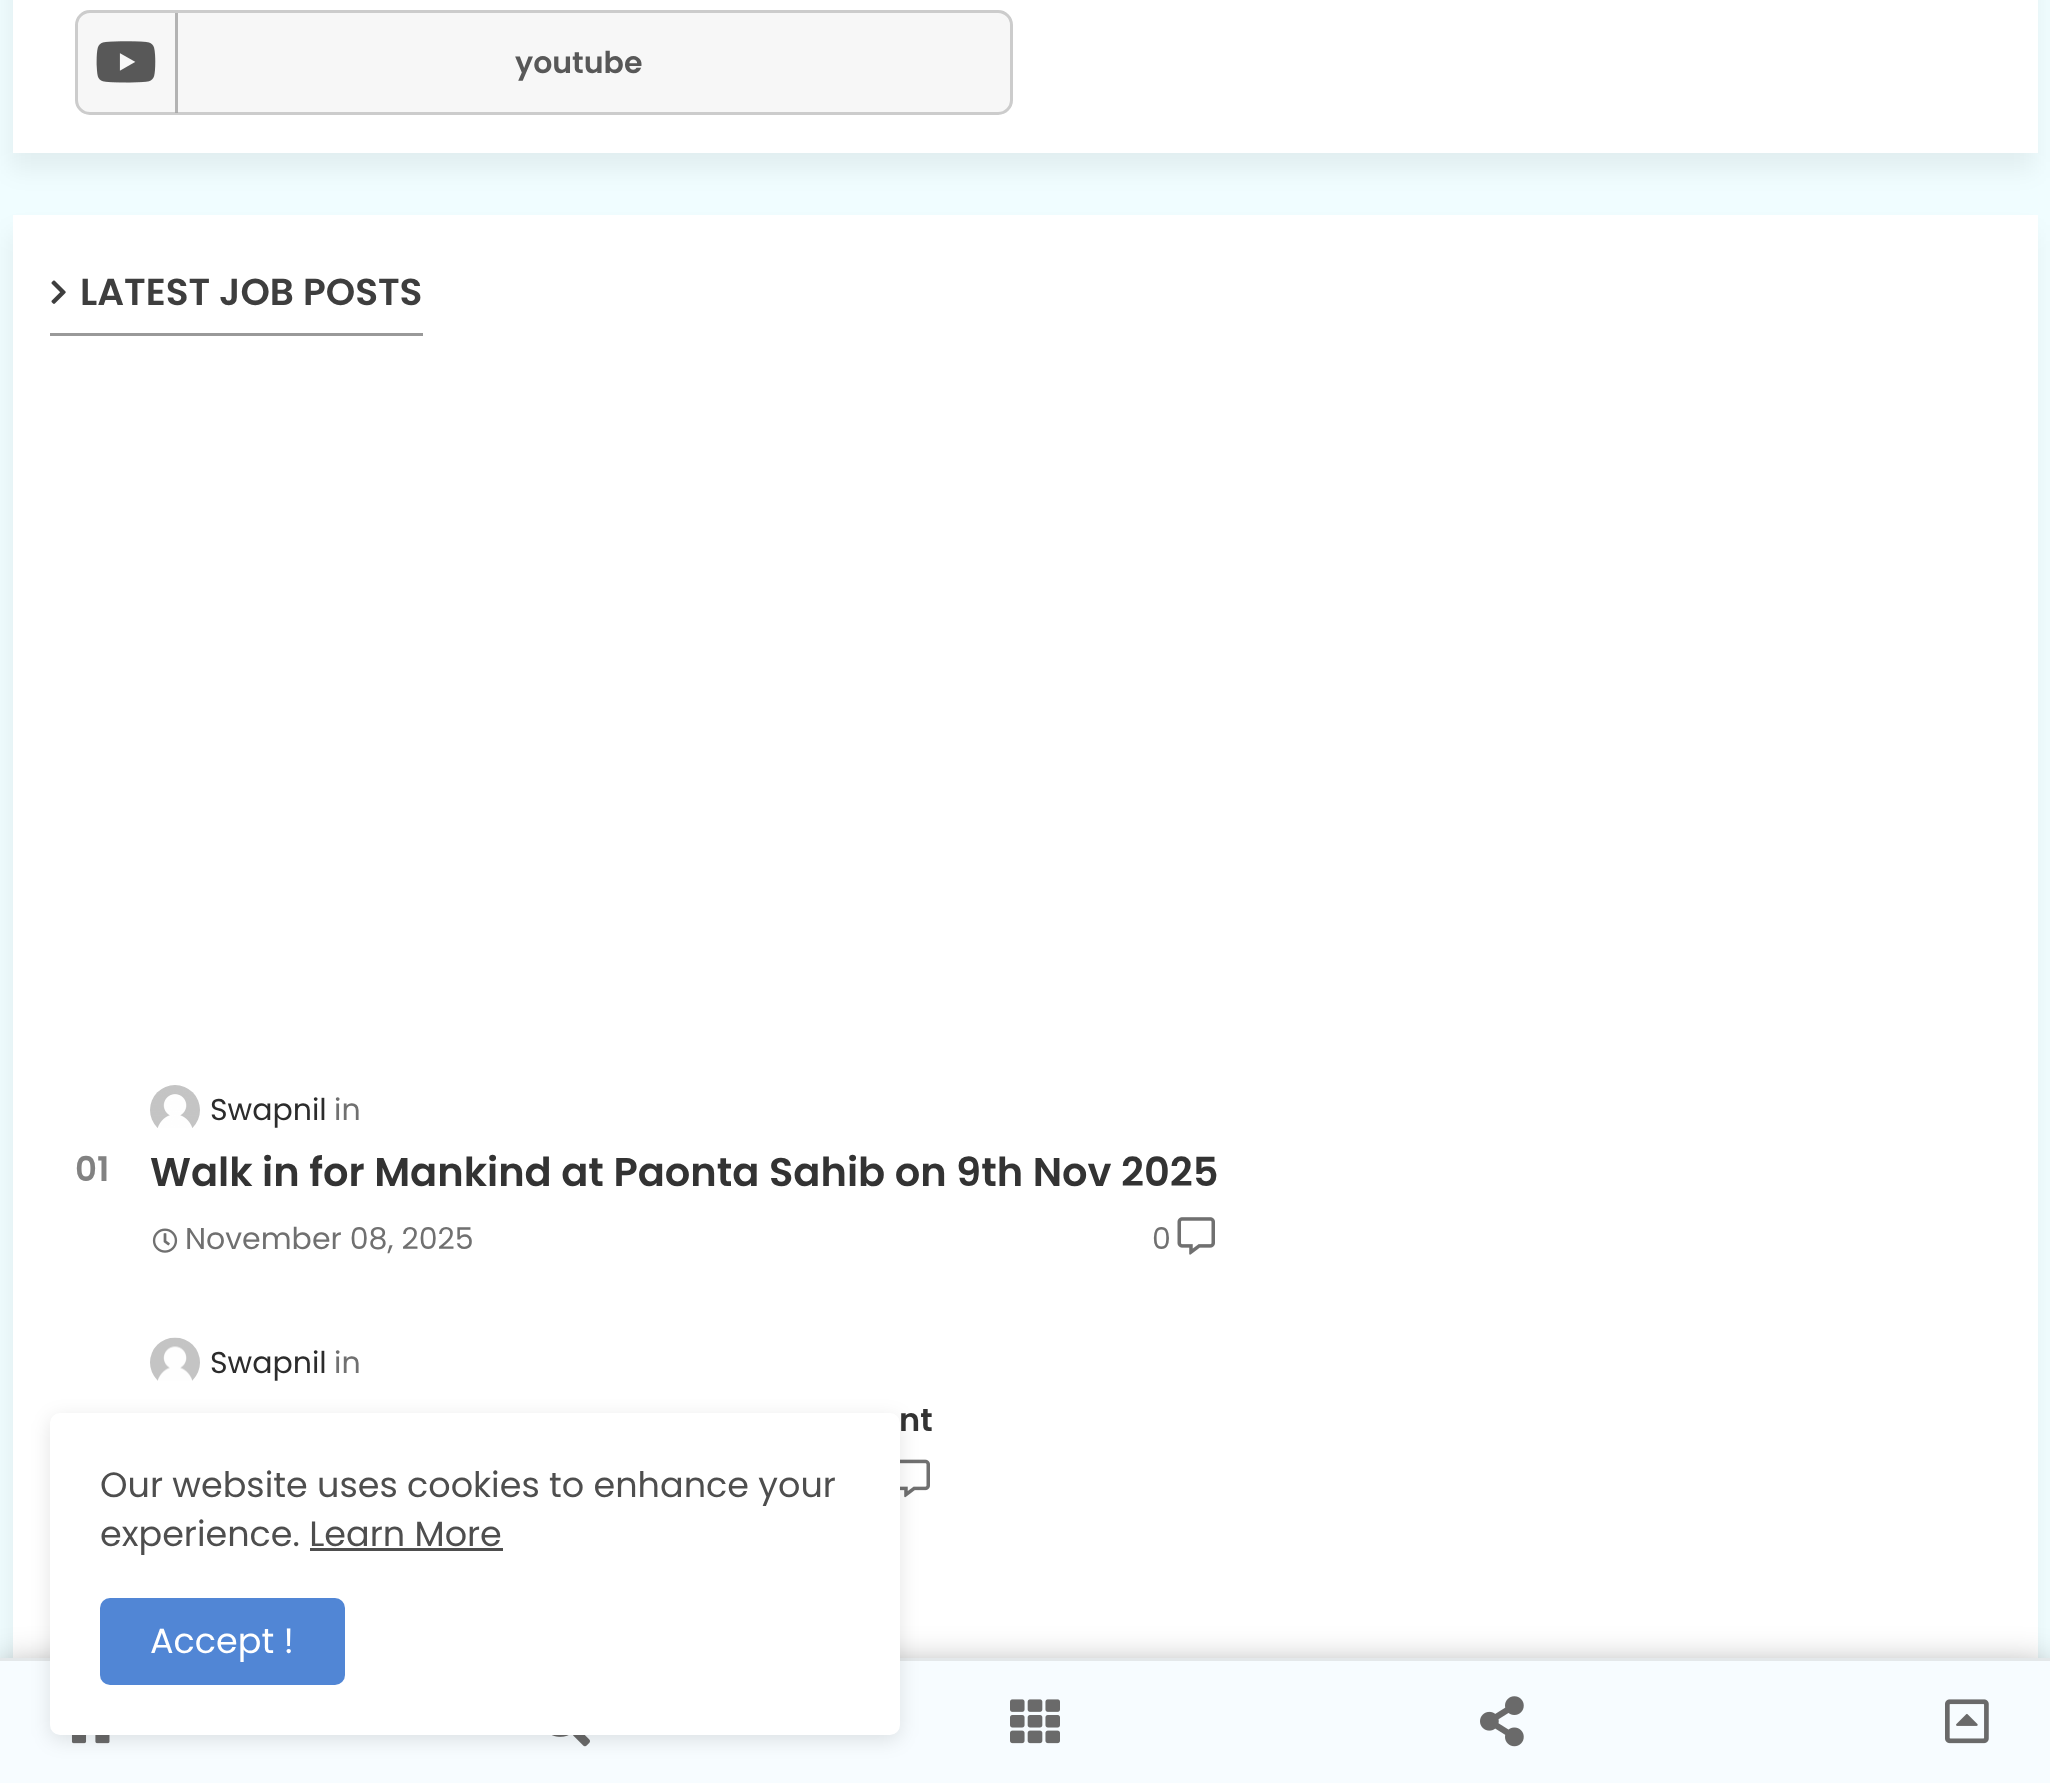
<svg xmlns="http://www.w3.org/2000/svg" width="2050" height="1783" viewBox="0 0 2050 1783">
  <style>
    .t1 { font: 600 30px Poppins; fill: #585858; }
    .t2 { font: 600 37.5px Poppins; fill: #3e3e3e; }
    .t3 { font: 30px Poppins; fill: #2c2c2c; }
    .t4 { font: 30px Poppins; fill: #707070; }
    .t5 { font: 600 34px Poppins; fill: #828282; }
    .t6 { font: 600 40px Poppins; fill: #333; }
    .t7 { font: 600 32px Poppins; fill: #333; }
    .t8 { font: 35px Poppins; fill: #4e4e4e; }
    .t9 { font: 35px Poppins; fill: #fff; }
  </style>
  <rect width="100%" height="100%" fill="#f0fdff"/>
  <rect x="10" y="-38" width="2025" height="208" fill="#0000000f" filter="blur(12.5px)"/>
  <rect x="13" y="0" width="2025" height="153" fill="#fff"/>
  <rect x="75" y="10" width="938" height="105" rx="15" fill="#f7f7f7"/>
  <rect x="76.5" y="11.5" width="935" height="102" rx="13.5" fill="none" stroke="#97979773" stroke-width="3"/>
  <rect x="175" y="13" width="3" height="100" fill="#a1a1a1cc"/>
  <image x="96" y="41" width="60" height="42" href="images/1.png"/>
  <text x="515" y="73" class="t1">youtube</text>
  <rect x="10" y="233" width="2025" height="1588" fill="#0000000f" filter="blur(12.5px)"/>
  <rect x="13" y="215" width="2025" height="1443" fill="#fff"/>
  <rect x="50" y="333" width="373" height="3" fill="#999"/>
  <image x="51" y="280" width="15" height="24" href="images/2.png"/>
  <text x="80" y="305" class="t2">LATEST JOB POSTS</text>
  <image x="150" y="1085" width="50" height="43" href="images/3.png"/>
  <text x="210" y="1120" class="t3">Swapnil</text>
  <text x="334" y="1120" class="t4">in</text>
  <text x="75" y="1181" class="t5">01</text>
  <text x="150" y="1186" class="t6">Walk in for Mankind at Paonta Sahib on 9th Nov 2025</text>
  <image x="152" y="1228" width="26" height="25" href="images/4.png"/>
  <text x="185" y="1249" class="t4">November 08, 2025</text>
  <text x="1152" y="1249" class="t4">0</text>
  <image x="1177" y="1217" width="38" height="38" href="images/5.png"/>
  <image x="150" y="1337" width="50" height="44" href="images/6.png"/>
  <text x="210" y="1373" class="t3">Swapnil</text>
  <text x="334" y="1373" class="t4">in</text>
  <text x="899" y="1431" class="t7">nt</text>
  <image x="900" y="1459" width="30" height="39" href="images/7.png"/>
  <rect x="0" y="1670" width="2050" height="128" fill="#00000075" filter="blur(19px)"/>
  <rect x="0" y="1661" width="2050" height="122" fill="#f7fcff"/>
  <rect x="0" y="1658" width="2050" height="3" fill="#e4e8ea"/>
  <image x="71" y="1735" width="39" height="9" href="images/8.png"/>
  <image x="552" y="1735" width="38" height="12" href="images/9.png"/>
  <rect x="50" y="1418" width="850" height="322" rx="10" fill="#0000001c" filter="blur(10px)"/>
  <rect x="50" y="1413" width="850" height="322" rx="10" fill="#fff"/>
  <text x="100" y="1497" class="t8">Our website uses cookies to enhance your</text>
  <text x="100" y="1546" class="t8">experience. Learn More</text>
  <rect x="310" y="1548" width="193" height="3" fill="#4e4e4e"/>
  <rect x="100" y="1598" width="245" height="87" rx="10" fill="#5186d5"/>
  <text x="150" y="1653" class="t9">Accept !</text>
  <image x="1010" y="1699" width="50" height="45" href="images/10.png"/>
  <image x="1480" y="1696" width="44" height="51" href="images/11.png"/>
  <image x="1945" y="1699" width="44" height="45" href="images/12.png"/>
</svg>
